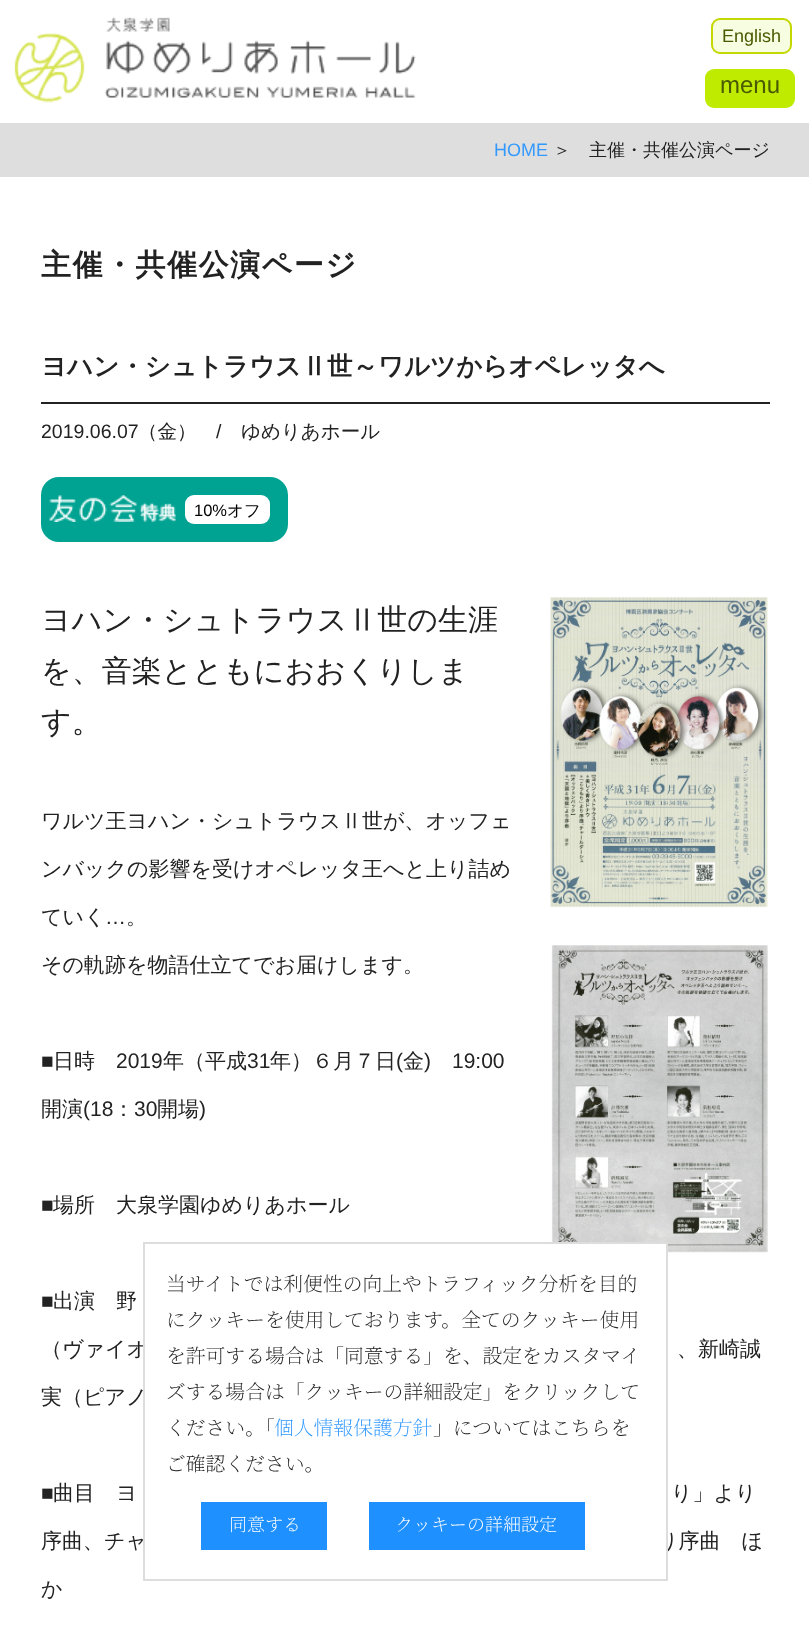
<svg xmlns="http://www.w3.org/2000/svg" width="809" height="1626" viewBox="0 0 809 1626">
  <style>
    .t1 { font: 18px Liberation Sans; fill: #495a00; }
    .t2 { font: 24px Liberation Sans; fill: #495a00; }
    .t3 { font: 18px Liberation Sans; fill: #39f; }
    .t4 { font: 500 18px WenQuanYi Zen Hei; fill: #222; }
    .t5 { font: bold 30px WenQuanYi Zen Hei; letter-spacing: 1.5px; fill: #222; }
    .t6 { font: bold 25.5px WenQuanYi Zen Hei; fill: #222; }
    .t7 { font: 19.5px Liberation Sans; fill: #222; }
    .t8 { font: 500 19.5px WenQuanYi Zen Hei; fill: #222; }
    .t9 { font: 16.5px Liberation Sans; fill: #000; }
    .t10 { font: 500 16.5px WenQuanYi Zen Hei; fill: #000; }
    .t11 { font: 500 30px WenQuanYi Zen Hei; fill: #222; }
    .t12 { font: 500 21px WenQuanYi Zen Hei; fill: #222; }
    .t13 { font: 21px Liberation Sans; fill: #222; }
    .t14 { font: 200 19.8px Noto Serif JP; fill: #222; }
    .t15 { font: 200 19.8px Noto Serif JP; fill: #39f; }
    .t16 { font: 200 18px Noto Serif JP; fill: #fff; }
  </style>
  <rect width="100%" height="100%" fill="#fff"/>
  <image x="14" y="17" width="402" height="86" href="images/1.png"/>
  <rect x="712" y="19" width="79" height="34" rx="8" fill="#f7fde0" stroke="#c4d700" stroke-width="2"/>
  <text x="722" y="42" class="t1">English</text>
  <rect x="705" y="69" width="90" height="39" rx="9" fill="#beeb00"/>
  <text x="720" y="93" class="t2">menu</text>
  <rect x="0" y="123" width="809" height="54" fill="#dedede"/>
  <text x="494" y="156" class="t3">HOME</text>
  <text x="553" y="156" class="t4">＞　主催・共催公演ページ</text>
  <text x="41" y="275" class="t5">主催・共催公演ページ</text>
  <text x="41" y="375" class="t6">ヨハン・シュトラウスⅡ世～ワルツからオペレッタへ</text>
  <rect x="41" y="402" width="729" height="2" fill="#222"/>
  <text x="41" y="438" class="t7">2019.06.07</text>
  <text x="138" y="438" class="t8">（金）</text>
  <text x="216" y="438" class="t7">/</text>
  <text x="241" y="438" class="t8">ゆめりあホール</text>
  <rect x="41" y="477" width="247" height="65" rx="18" fill="#00a392"/>
  <image x="49" y="495" width="127" height="27" href="images/2.png"/>
  <rect x="185" y="495" width="85" height="29" rx="9" fill="#fff"/>
  <text x="194" y="516" class="t9">10%</text>
  <text x="227" y="516" class="t10">オフ</text>
  <image x="550" y="597" width="218" height="311" href="images/3.png"/>
  <image x="551" y="945" width="217" height="308" href="images/4.png"/>
  <text x="41" y="630" class="t11">ヨハン・シュトラウスⅡ世の生涯</text>
  <text x="41" y="681" class="t11">を、音楽とともにおおくりしま</text>
  <text x="41" y="732" class="t11">す。</text>
  <text x="41" y="828" class="t12">ワルツ王ヨハン・シュトラウスⅡ世が、オッフェ</text>
  <text x="41" y="876" class="t12">ンバックの影響を受けオペレッタ王へと上り詰め</text>
  <text x="41" y="924" class="t12">ていく</text>
  <text x="105" y="924" class="t13">…</text>
  <text x="126" y="924" class="t12">。</text>
  <text x="41" y="972" class="t12">その軌跡を物語仕立てでお届けします。</text>
  <text x="41" y="1068" class="t13">■</text>
  <text x="53" y="1068" class="t12">日時</text>
  <text x="116" y="1068" class="t13">2019</text>
  <text x="163" y="1068" class="t12">年（平成</text>
  <text x="247" y="1068" class="t13">31</text>
  <text x="270" y="1068" class="t12">年）６月７日</text>
  <text x="396" y="1068" class="t13">(</text>
  <text x="403" y="1068" class="t12">金</text>
  <text x="424" y="1068" class="t13">)</text>
  <text x="452" y="1068" class="t13">19:00</text>
  <text x="41" y="1116" class="t12">開演</text>
  <text x="83" y="1116" class="t13">(18</text>
  <text x="113" y="1116" class="t12">：</text>
  <text x="134" y="1116" class="t13">30</text>
  <text x="157" y="1116" class="t12">開場</text>
  <text x="199" y="1116" class="t13">)</text>
  <text x="41" y="1212" class="t13">■</text>
  <text x="53" y="1212" class="t12">場所　大泉学園ゆめりあホール</text>
  <text x="41" y="1308" class="t13">■</text>
  <text x="53" y="1308" class="t12">出演　野</text>
  <text x="41" y="1356" class="t12">（ヴァイオ</text>
  <text x="677" y="1356" class="t12">、新崎誠</text>
  <text x="41" y="1404" class="t12">実（ピアノ</text>
  <text x="41" y="1500" class="t13">■</text>
  <text x="53" y="1500" class="t12">曲目　ヨ</text>
  <text x="671" y="1500" class="t12">り」より</text>
  <text x="41" y="1548" class="t12">序曲、チャ</text>
  <text x="657" y="1548" class="t12">り序曲　ほ</text>
  <text x="41" y="1596" class="t12">か</text>
  <rect x="551" y="1244" width="115" height="302" fill="#fff"/>
  <rect x="144" y="1243" width="523" height="337" fill="none" stroke="#ddd" stroke-width="2"/>
  <text x="166" y="1291" class="t14">当サイトでは利便性の向上やトラフィック分析を目的</text>
  <text x="166" y="1327" class="t14">にクッキーを使用しております。全てのクッキー使用</text>
  <text x="166" y="1363" class="t14">を許可する場合は「同意する」を、設定をカスタマイ</text>
  <text x="166" y="1399" class="t14">ズする場合は「クッキーの詳細設定」をクリックして</text>
  <text x="166" y="1435" class="t14">ください。「</text>
  <text x="274" y="1435" class="t15">個人情報保護方針</text>
  <text x="433" y="1435" class="t14">」についてはこちらを</text>
  <text x="166" y="1471" class="t14">ご確認ください。</text>
  <rect x="201" y="1502" width="126" height="48" fill="#1e90ff"/>
  <text x="229" y="1531" class="t16">同意する</text>
  <rect x="369" y="1502" width="216" height="48" fill="#1e90ff"/>
  <text x="395" y="1531" class="t16">クッキーの詳細設定</text>
</svg>
